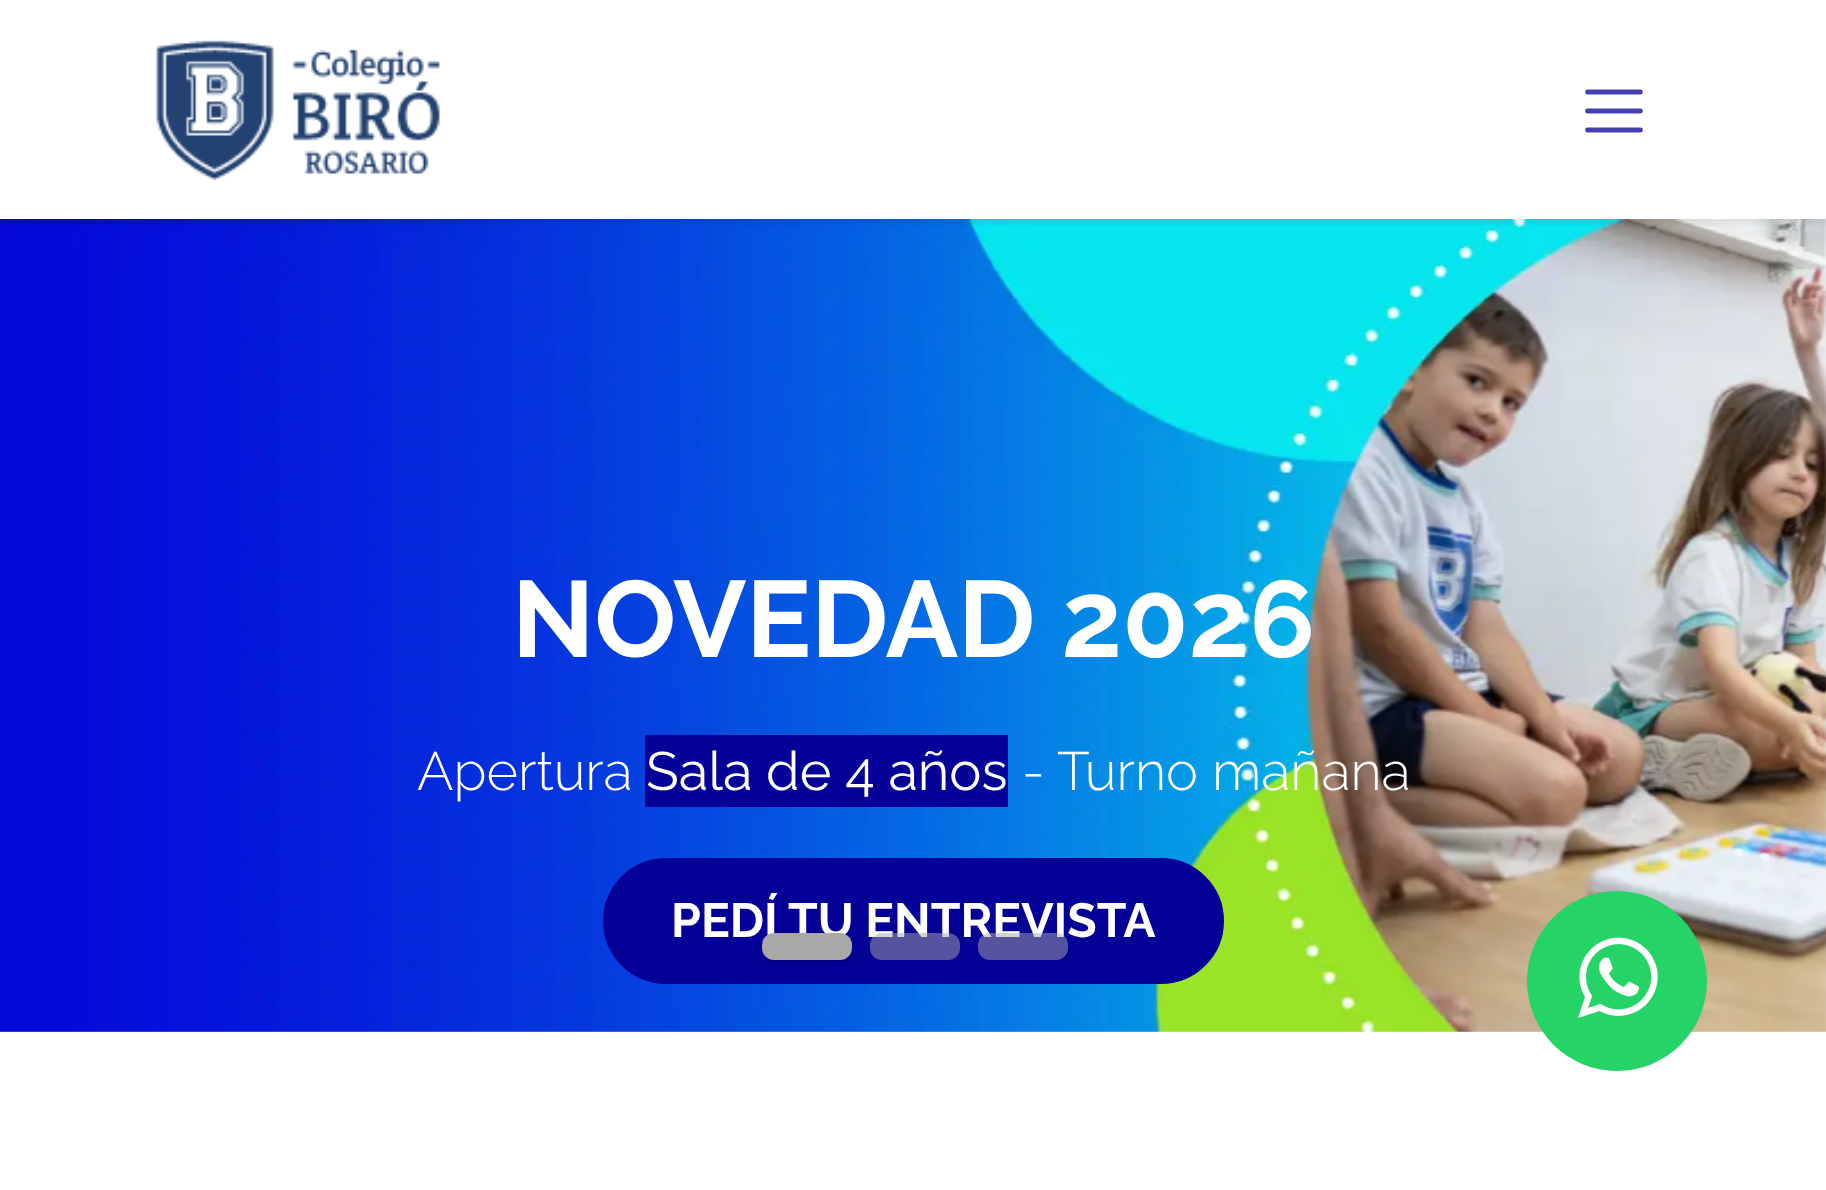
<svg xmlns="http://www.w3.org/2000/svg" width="1826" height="1190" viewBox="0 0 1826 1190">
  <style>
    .t1 { font: bold 108px Raleway; fill: #fff; }
    .t2 { font: 300 54px Raleway; fill: #fff; }
    .t3 { font: 54px Raleway; fill: #fff; }
    .t4 { font: bold 48px Raleway; fill: #fff; }
  </style>
  <defs>
    <clipPath id="clip1"><rect x="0" y="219" width="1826" height="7"/></clipPath>
  </defs>
  <rect width="100%" height="100%" fill="#fff"/>
  <image x="0" y="219" width="1826" height="813" href="images/2.png"/>
  <g clip-path="url(#clip1)">
    <rect x="0" y="3" width="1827" height="219" fill="#0000001a" filter="blur(4.5px)"/>
  </g>
  <image x="156" y="40" width="284" height="140" href="images/1.png"/>
  <path d="M1587.5 92H1640.5M1587.5 111H1640.5M1587.5 130H1640.5" fill="none" stroke="#4440b0" stroke-width="4.8" stroke-linecap="round"/>
  <text x="512" y="657" class="t1">NOVEDAD 2026</text>
  <text x="417" y="790" class="t2">Apertura</text>
  <rect x="645" y="735" width="363" height="72" fill="#050096"/>
  <text x="646" y="790" class="t3">Sala de 4 años</text>
  <text x="1022" y="790" class="t2">- Turno mañana</text>
  <rect x="604.5" y="859.5" width="618" height="123" rx="61.5" fill="#050096" stroke="#050096" stroke-width="3"/>
  <text x="671" y="937" class="t4">PEDÍ TU ENTREVISTA</text>
  <rect x="762" y="936" width="90" height="27" rx="12" fill="#0000001a" filter="blur(4.5px)"/>
  <rect x="762" y="933" width="90" height="27" rx="12" fill="#aaa7a7"/>
  <rect x="870" y="933" width="90" height="27" rx="12" fill="#aaa7a780"/>
  <rect x="978" y="933" width="90" height="27" rx="12" fill="#aaa7a780"/>
  <circle cx="1617" cy="981" r="90" fill="#25d366"/>
  <image x="1578" y="937" width="80" height="81" href="images/3.png"/>
</svg>
